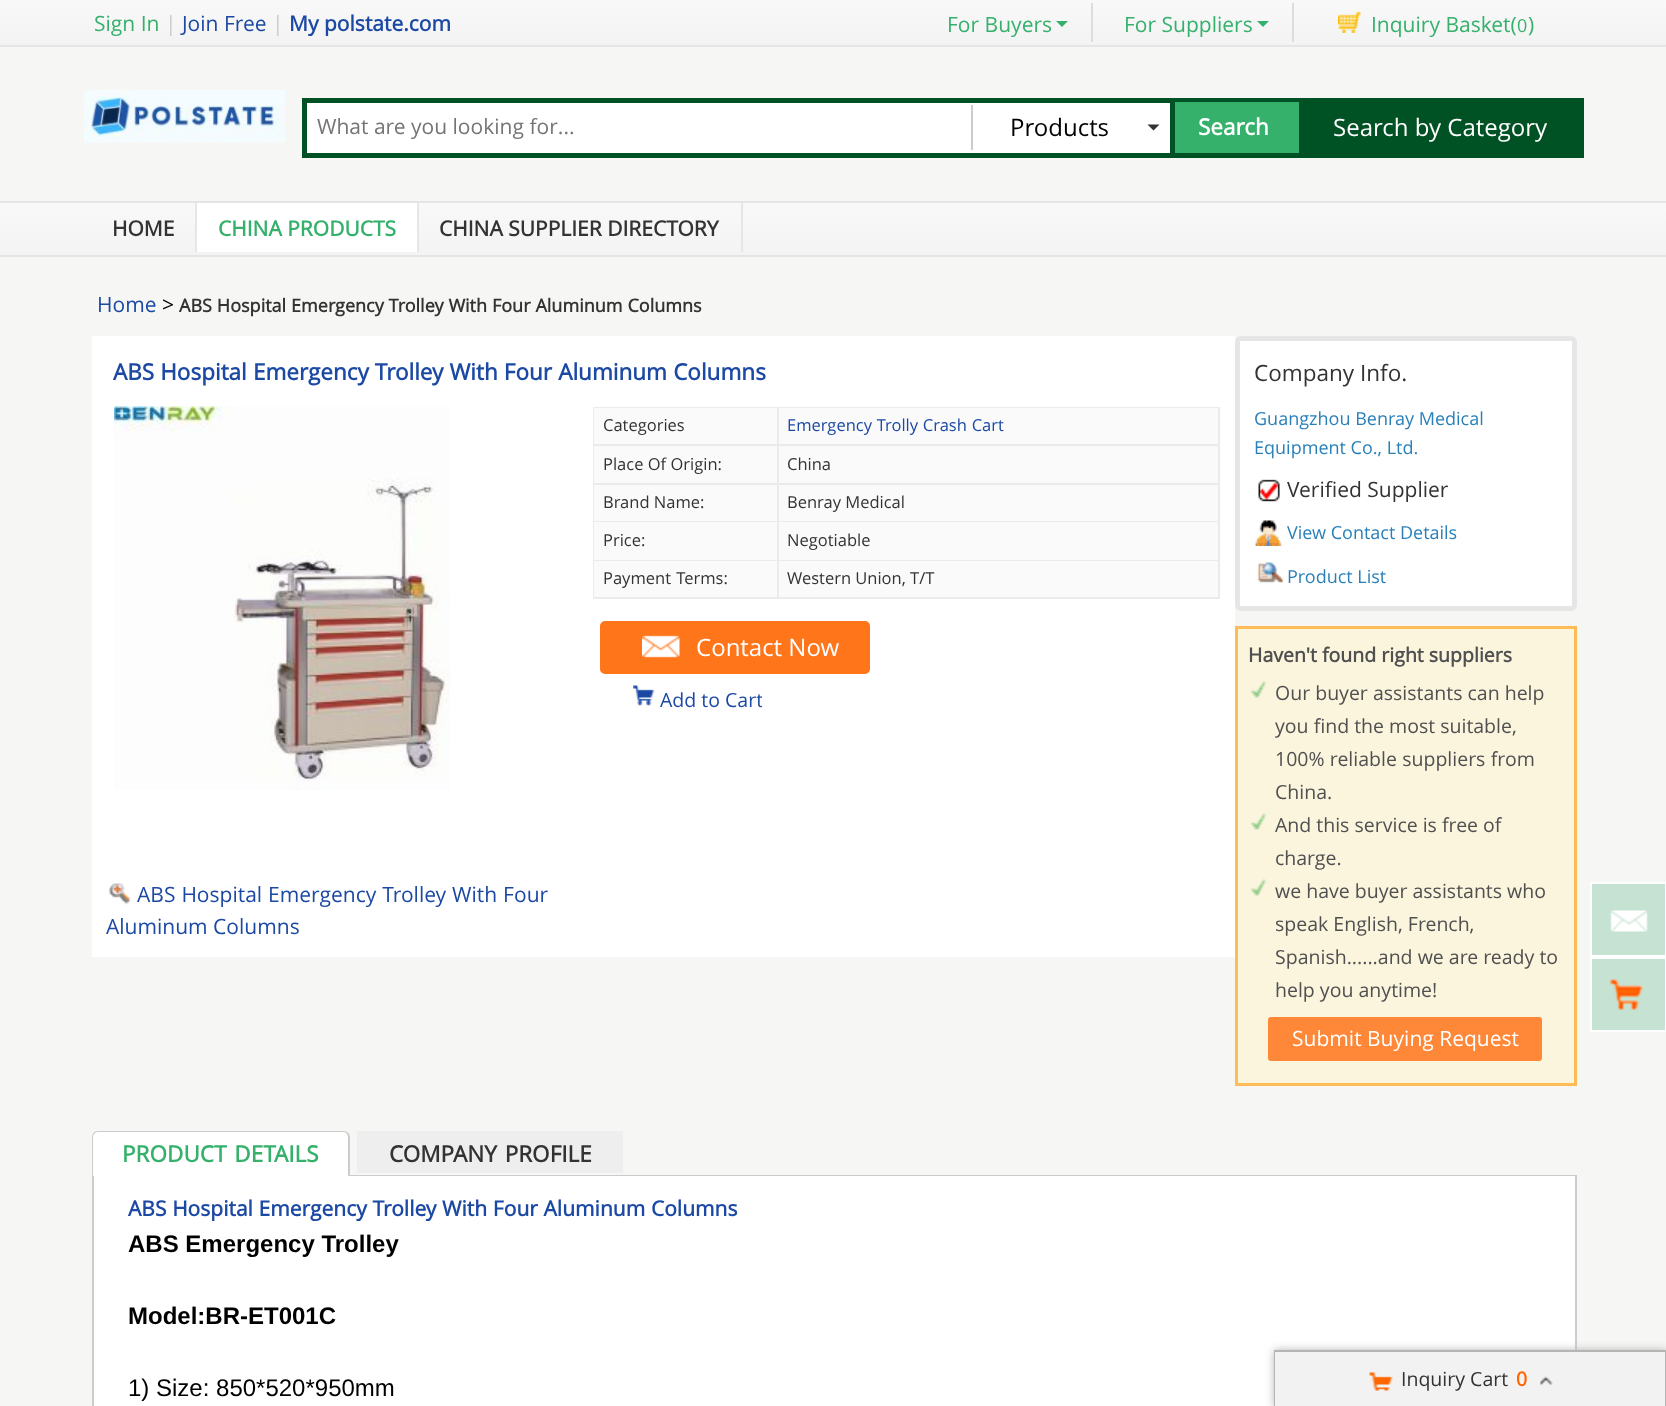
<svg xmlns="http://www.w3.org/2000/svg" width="1666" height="1406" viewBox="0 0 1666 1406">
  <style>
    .t1 { font: 21px Open Sans; fill: #35b16c; }
    .t2 { font: 21px Open Sans; fill: #ccc; }
    .t3 { font: 21px Open Sans; fill: #1c49a4; }
    .t4 { font: bold 21px Open Sans; fill: #1c49a4; }
    .t5 { font: 18px Open Sans; fill: #35b16c; }
    .t6 { font: 21px Open Sans; fill: #757575; }
    .t7 { font: 24px Open Sans; fill: #000; }
    .t8 { font: bold 22.5px Open Sans; fill: #fff; }
    .t9 { font: 24px Open Sans; fill: #fff; }
    .t10 { font: bold 21px Open Sans; fill: #333; }
    .t11 { font: bold 21px Open Sans; fill: #35b16c; }
    .t12 { font: 21px Open Sans; fill: #000; }
    .t13 { font: bold 18px Open Sans; fill: #333; }
    .t14 { font: bold 22.5px Open Sans; fill: #1c49a4; }
    .t15 { font: 16.5px Open Sans; fill: #333; }
    .t16 { font: 16.5px Open Sans; fill: #1c49a4; }
    .t17 { font: 19.5px Open Sans; fill: #1c49a4; }
    .t18 { font: 22.5px Open Sans; fill: #333; }
    .t19 { font: 18px Open Sans; fill: #2980b9; }
    .t20 { font: 21px Open Sans; fill: #333; }
    .t21 { font: bold 19.5px Open Sans; fill: #505050; }
    .t22 { font: 19.5px Open Sans; fill: #505050; }
    .t23 { font: 21px Open Sans; fill: #fff; }
    .t24 { font: bold 22.5px Open Sans; fill: #35b16c; }
    .t25 { font: bold 22.5px Open Sans; fill: #333; }
    .t26 { font: bold 24px Liberation Sans; fill: #000; }
    .t27 { font: 24px Liberation Sans; fill: #000; }
    .t28 { font: 19.5px Open Sans; fill: #333; }
    .t29 { font: bold 19.5px Open Sans; fill: #f60; }
  </style>
  <defs>
    <linearGradient id="g1" gradientUnits="userSpaceOnUse" x1="833" y1="0" x2="833" y2="45"><stop offset="0" stop-color="#f9f9f9"/><stop offset="1" stop-color="#f3f3f3"/></linearGradient>
    <linearGradient id="g2" gradientUnits="userSpaceOnUse" x1="833" y1="202" x2="833" y2="255"><stop offset="0" stop-color="#f9f9f9"/><stop offset="1" stop-color="#f3f3f3"/></linearGradient>
    <clipPath id="clip1"><rect x="633" y="684" width="129" height="26"/></clipPath>
  </defs>
  <rect width="100%" height="100%" fill="#f6f6f4"/>
  <rect x="0" y="0" width="1666" height="45" fill="url(#g1)"/>
  <rect x="0" y="45" width="1666" height="2" fill="#e5e5e5"/>
  <text x="94" y="31" class="t1">Sign In</text>
  <text x="165" y="31" class="t2">|</text>
  <text x="182" y="31" class="t3">Join Free</text>
  <text x="272" y="31" class="t2">|</text>
  <text x="289" y="31" class="t4">My polstate.com</text>
  <rect x="1091" y="3" width="2" height="39" fill="#ddd"/>
  <text x="947" y="32" class="t1">For Buyers</text>
  <path d="M1056 21H1068L1062 27Z" fill="#35b16c"/>
  <rect x="1292" y="3" width="2" height="39" fill="#ddd"/>
  <text x="1124" y="32" class="t1">For Suppliers</text>
  <path d="M1257 21H1269L1263 27Z" fill="#35b16c"/>
  <image x="1338" y="11" width="23" height="22" href="images/1.png"/>
  <text x="1371" y="32" class="t1">Inquiry Basket(</text>
  <text x="1517" y="32" class="t5">0</text>
  <text x="1528" y="32" class="t1">)</text>
  <image x="84" y="90" width="201" height="53" href="images/2.png"/>
  <rect x="307" y="103" width="664" height="50" fill="#fff"/>
  <rect x="304.5" y="100.5" width="724" height="55" fill="none" stroke="#005124" stroke-width="5"/>
  <text x="317" y="134" class="t6">What are you looking for...</text>
  <rect x="971" y="103" width="199" height="50" fill="#fff"/>
  <rect x="1031" y="98" width="144" height="5" fill="#005124"/>
  <rect x="1170" y="98" width="5" height="60" fill="#005124"/>
  <rect x="1031" y="153" width="144" height="5" fill="#005124"/>
  <rect x="971" y="105" width="2" height="45" fill="#ccc"/>
  <text x="1010" y="136" class="t7">Products</text>
  <path d="M1147.5 124.5H1159.5L1153.5 130.5Z" fill="#333"/>
  <rect x="1175" y="98" width="409" height="60" fill="#005124"/>
  <rect x="1175" y="102" width="124" height="51" fill="#35b16c"/>
  <text x="1198" y="135" class="t8">Search</text>
  <text x="1333" y="136" class="t9">Search by Category</text>
  <rect x="0" y="203" width="1666" height="52" fill="url(#g2)"/>
  <rect x="0" y="201" width="1666" height="2" fill="#e5e5e5"/>
  <rect x="0" y="255" width="1666" height="2" fill="#e5e5e5"/>
  <rect x="195" y="203" width="2" height="49" fill="#e6e6e6"/>
  <text x="112" y="236" class="t10">HOME</text>
  <rect x="197" y="203" width="220" height="49" fill="#fff"/>
  <rect x="417" y="203" width="2" height="49" fill="#e6e6e6"/>
  <text x="218" y="236" class="t11">CHINA PRODUCTS</text>
  <rect x="741" y="203" width="2" height="49" fill="#e6e6e6"/>
  <text x="439" y="236" class="t10">CHINA SUPPLIER DIRECTORY</text>
  <text x="97" y="312" class="t3">Home</text>
  <text x="162" y="312" class="t12">&gt;</text>
  <text x="179" y="312" word-spacing="0.25" class="t13">ABS Hospital Emergency Trolley With Four Aluminum Columns</text>
  <rect x="92" y="336" width="1143" height="621" fill="#fff"/>
  <text x="113" y="380" word-spacing="0.25" class="t14">ABS Hospital Emergency Trolley With Four Aluminum Columns</text>
  <rect x="593" y="407" width="627" height="192" fill="#ebebeb"/>
  <rect x="594" y="408" width="183" height="36" fill="#fafafa"/>
  <text x="603" y="431" class="t15">Categories</text>
  <rect x="779" y="408" width="439" height="36" fill="#fafafa"/>
  <text x="787" y="431" word-spacing="0.5" class="t16">Emergency Trolly Crash Cart</text>
  <rect x="594" y="446" width="183" height="37" fill="#fafafa"/>
  <text x="603" y="470" class="t15">Place Of Origin:</text>
  <rect x="779" y="446" width="439" height="37" fill="#fafafa"/>
  <text x="787" y="470" class="t15">China</text>
  <rect x="594" y="485" width="183" height="36" fill="#fafafa"/>
  <text x="603" y="508" class="t15">Brand Name:</text>
  <rect x="779" y="485" width="439" height="36" fill="#fafafa"/>
  <text x="787" y="508" class="t15">Benray Medical</text>
  <rect x="594" y="522" width="183" height="38" fill="#fafafa"/>
  <text x="603" y="546" class="t15">Price:</text>
  <rect x="779" y="522" width="439" height="38" fill="#fafafa"/>
  <text x="787" y="546" class="t15">Negotiable</text>
  <rect x="594" y="561" width="183" height="36" fill="#fafafa"/>
  <text x="603" y="584" word-spacing="1" class="t15">Payment Terms:</text>
  <rect x="779" y="561" width="439" height="36" fill="#fafafa"/>
  <text x="787" y="584" class="t15">Western Union, T/T</text>
  <rect x="600" y="621" width="270" height="53" rx="5" fill="#ff7519"/>
  <image x="642" y="635" width="38" height="23" href="images/3.png"/>
  <text x="696" y="656" class="t9">Contact Now</text>
  <image x="633" y="685" width="22" height="21" href="images/4.png"/>
  <g clip-path="url(#clip1)">
    <text x="660" y="707" class="t17">Add to Cart</text>
  </g>
  <image x="114" y="406" width="336" height="384" href="images/5.png"/>
  <image x="109" y="883" width="22" height="22" href="images/6.png"/>
  <text x="137" y="902" word-spacing="0.5" class="t3">ABS Hospital Emergency Trolley With Four</text>
  <text x="106" y="934" class="t3">Aluminum Columns</text>
  <rect x="1237.5" y="338.5" width="337" height="270" rx="3.5" fill="#fff" stroke="#e6e6e6" stroke-width="5"/>
  <text x="1254" y="381" class="t18">Company Info.</text>
  <text x="1254" y="425" class="t19">Guangzhou Benray Medical</text>
  <text x="1254" y="454" class="t19">Equipment Co., Ltd.</text>
  <image x="1258" y="479" width="22" height="23" href="images/7.png"/>
  <text x="1287" y="497" class="t20">Verified Supplier</text>
  <image x="1255" y="520" width="27" height="26" href="images/8.png"/>
  <text x="1287" y="539" class="t19">View Contact Details</text>
  <image x="1257" y="562" width="27" height="21" href="images/9.png"/>
  <text x="1287" y="583" class="t19">Product List</text>
  <rect x="1236.5" y="627.5" width="339" height="457" fill="#fbf5de" stroke="#fb5" stroke-width="3"/>
  <text x="1248" y="662" class="t21">Haven't found right suppliers</text>
  <image x="1250" y="681" width="17" height="17" href="images/10.png"/>
  <text x="1275" y="700" class="t22">Our buyer assistants can help</text>
  <text x="1275" y="733" class="t22">you find the most suitable,</text>
  <text x="1275" y="766" word-spacing="0.25" class="t22">100% reliable suppliers from</text>
  <text x="1275" y="799" class="t22">China.</text>
  <image x="1250" y="813" width="17" height="17" href="images/11.png"/>
  <text x="1275" y="832" class="t22">And this service is free of</text>
  <text x="1275" y="865" class="t22">charge.</text>
  <image x="1250" y="879" width="17" height="17" href="images/10.png"/>
  <text x="1275" y="898" class="t22">we have buyer assistants who</text>
  <text x="1275" y="931" class="t22">speak English, French,</text>
  <text x="1275" y="964" class="t22">Spanish......and we are ready to</text>
  <text x="1275" y="997" class="t22">help you anytime!</text>
  <rect x="1268" y="1017" width="274" height="44" rx="3" fill="#ff8838"/>
  <text x="1292" y="1046" class="t23">Submit Buying Request</text>
  <rect x="1591" y="883" width="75" height="73" fill="#c5e2d2" stroke="#fff" stroke-width="2"/>
  <image x="1610" y="910" width="38" height="22" href="images/12.png"/>
  <rect x="1591" y="958" width="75" height="73" fill="#c5e2d2" stroke="#fff" stroke-width="2"/>
  <image x="1609" y="979" width="35" height="32" href="images/13.png"/>
  <rect x="350" y="1175" width="1227" height="1" fill="#ccc"/>
  <path d="M98 1131H344C347.5 1131 350 1133.5 350 1137V1176H92V1137C92 1133.5 94.5 1131 98 1131Z" fill="#fff"/>
  <path d="M98 1131H344C347 1131 350 1134 350 1137V1176H92V1137C92 1134 94 1131 98 1131ZM98 1132H344C346 1132 348 1135 348 1137V1176H93V1137C93 1135 95 1132 98 1132Z" fill="#ccc" fill-rule="evenodd"/>
  <text x="122" y="1162" word-spacing="2" class="t24">PRODUCT DETAILS</text>
  <rect x="357" y="1131" width="266" height="42" fill="#efeeee"/>
  <text x="389" y="1162" word-spacing="2" class="t25">COMPANY PROFILE</text>
  <rect x="94" y="1176" width="1481" height="230" fill="#fff"/>
  <rect x="1575" y="1176" width="2" height="174" fill="#ccc"/>
  <rect x="92" y="1176" width="2" height="230" fill="#ccc"/>
  <text x="128" y="1216" word-spacing="0.25" class="t4">ABS Hospital Emergency Trolley With Four Aluminum Columns</text>
  <text x="128" y="1252" class="t26">ABS Emergency Trolley</text>
  <text x="128" y="1324" class="t26">Model:BR-ET001C</text>
  <text x="128" y="1396" class="t27">1) Size: 850*520*950mm</text>
  <rect x="1274" y="1350" width="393" height="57" fill="#b5b5b5" filter="blur(4px)"/>
  <rect x="1274" y="1350" width="392" height="2" fill="#b5b5b5"/>
  <rect x="1665" y="1350" width="1" height="56" fill="#b5b5b5"/>
  <rect x="1274" y="1350" width="2" height="56" fill="#b5b5b5"/>
  <rect x="1275" y="1352" width="390" height="54" fill="#f2f2f2"/>
  <image x="1369" y="1372" width="24" height="19" href="images/14.png"/>
  <text x="1401" y="1386" class="t28">Inquiry Cart</text>
  <text x="1516" y="1386" class="t29">0</text>
  <image x="1540" y="1376" width="13" height="9" href="images/15.png"/>
</svg>
